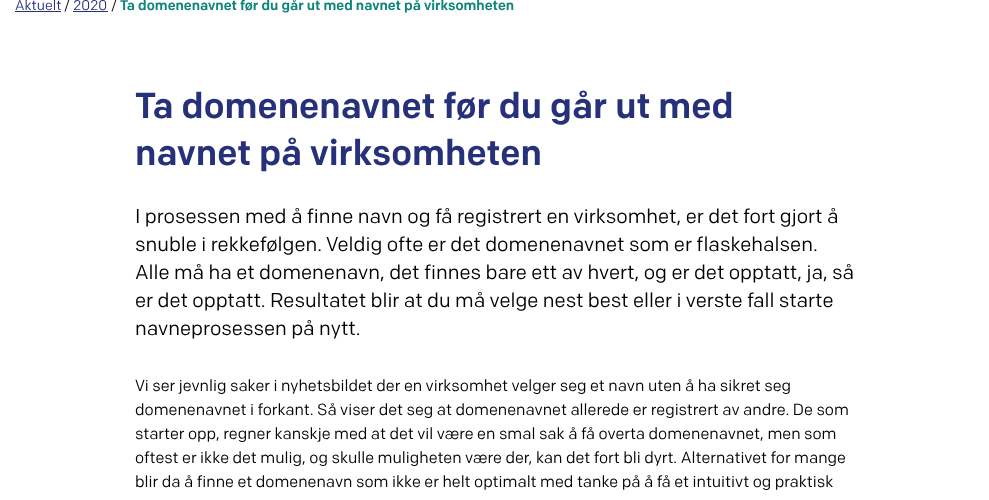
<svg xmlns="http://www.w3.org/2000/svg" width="989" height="500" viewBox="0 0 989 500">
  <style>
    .t1 { font: 14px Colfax; fill: #27317a; }
    .t2 { font: 14px Colfax; fill: #000; }
    .t3 { font: 500 14px Colfax; fill: #0d857b; }
    .t4 { font: 500 36px Colfax; fill: #27317a; }
    .t5 { font: 20px Colfax; fill: #000; }
    .t6 { font: 16px Colfax; fill: #000; }
  </style>
  <rect width="100%" height="100%" fill="#fff"/>
  <text x="15" y="10" class="t1">Aktuelt</text>
  <rect x="15" y="11" width="46" height="1" fill="#27317a"/>
  <text x="64" y="10" class="t2">/</text>
  <text x="73" y="10" class="t1">2020</text>
  <rect x="73" y="11" width="35" height="1" fill="#27317a"/>
  <text x="111" y="10" class="t2">/</text>
  <text x="120" y="10" class="t3">Ta domenenavnet før du går ut med navnet på virksomheten</text>
  <text x="135" y="118" class="t4">Ta domenenavnet før du går ut med</text>
  <text x="135" y="165" class="t4">navnet på virksomheten</text>
  <text x="135" y="223" class="t5">I prosessen med å finne navn og få registrert en virksomhet, er det fort gjort å</text>
  <text x="135" y="251" class="t5">snuble i rekkefølgen. Veldig ofte er det domenenavnet som er flaskehalsen.</text>
  <text x="135" y="279" class="t5">Alle må ha et domenenavn, det finnes bare ett av hvert, og er det opptatt, ja, så</text>
  <text x="135" y="307" class="t5">er det opptatt. Resultatet blir at du må velge nest best eller i verste fall starte</text>
  <text x="135" y="335" class="t5">navneprosessen på nytt.</text>
  <text x="135" y="391" class="t6">Vi ser jevnlig saker i nyhetsbildet der en virksomhet velger seg et navn uten å ha sikret seg</text>
  <text x="135" y="415" class="t6">domenenavnet i forkant. Så viser det seg at domenenavnet allerede er registrert av andre. De som</text>
  <text x="135" y="439" class="t6">starter opp, regner kanskje med at det vil være en smal sak å få overta domenenavnet, men som</text>
  <text x="135" y="463" class="t6">oftest er ikke det mulig, og skulle muligheten være der, kan det fort bli dyrt. Alternativet for mange</text>
  <text x="135" y="487" class="t6">blir da å finne et domenenavn som ikke er helt optimalt med tanke på å få et intuitivt og praktisk</text>
</svg>
